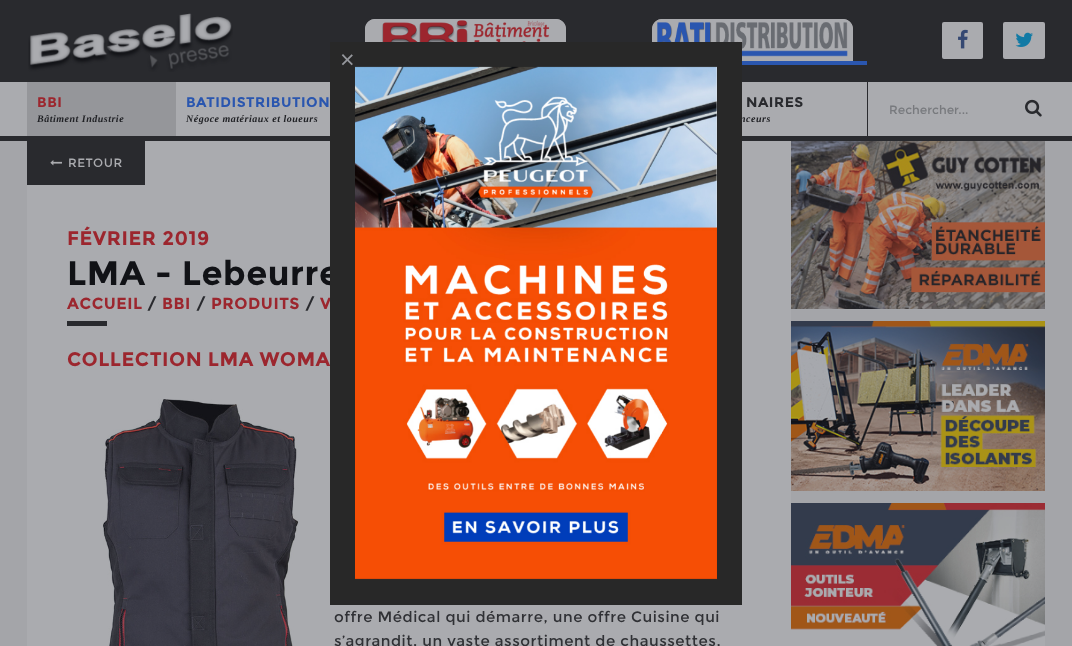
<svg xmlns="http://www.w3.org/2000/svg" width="1072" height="646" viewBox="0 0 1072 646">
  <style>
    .t1 { font: italic bold 10px Liberation Serif; letter-spacing: 0.5px; fill: #212226; }
    .t2 { font: bold 34px Montserrat; letter-spacing: 0.5px; fill: #111216; }
    .t3 { font: bold 16px Montserrat; letter-spacing: 0.5px; fill: #9c262e; }
    .t4 { font: bold 19.6px Montserrat; letter-spacing: 0.5px; fill: #9c262e; }
    .t5 { font: 25px Liberation Sans; fill: #95979c; }
    .t6 { font: bold 14px Montserrat; letter-spacing: 0.5px; fill: #9c262e; }
    .t7 { font: bold 14px Montserrat; letter-spacing: 0.5px; fill: #2a56af; }
    .t8 { font: bold 14px Montserrat; letter-spacing: 0.5px; fill: #292a2e; }
    .t9 { font: 12px Montserrat; fill: #787a7e; }
    .t10 { font: 12px Montserrat; letter-spacing: 0.5px; fill: #aaabaf; }
    .t11 { font: bold 16px Montserrat; letter-spacing: 0.5px; fill: #292a2e; }
    .t12 { font: 15px Montserrat; letter-spacing: 0.5px; fill: #303135; }
  </style>
  <rect width="100%" height="100%" fill="#a4a5a9"/>
  <rect x="0" y="0" width="1072" height="82" fill="#292a2e"/>
  <path d="M375 19H556C561.5 19 566 23.5 566 29V62H365V29C365 23.5 369.5 19 375 19Z" fill="#aaabaf"/>
  <path d="M662 19H843C848.5 19 853 23.5 853 29V62H652V29C652 23.5 656.5 19 662 19Z" fill="#aaabaf"/>
  <image x="652" y="19" width="201" height="38" href="images/4.png"/>
  <rect x="0" y="82" width="1072" height="54" fill="#aaabaf"/>
  <rect x="0" y="136" width="1072" height="5" fill="#292a2e"/>
  <text x="740" y="122" class="t1">nceurs</text>
  <rect x="27" y="141" width="764" height="505" fill="#aaabaf"/>
  <text x="67" y="285" class="t2">LMA - Lebeurre</text>
  <text x="320" y="309" class="t3">V</text>
  <text x="67" y="366" class="t4">COLLECTION LMA WOMA</text>
  <rect x="330" y="42" width="412" height="563" fill="#282828"/>
  <text x="340" y="68" class="t5">×</text>
  <image x="355" y="66" width="362" height="514" href="images/1.png"/>
  <image x="28" y="13" width="205" height="59" href="images/2.png"/>
  <image x="365" y="19" width="201" height="23" href="images/3.png"/>
  <rect x="742" y="61" width="125" height="4" fill="#2a56af"/>
  <rect x="942" y="22" width="41" height="37" rx="2" fill="#aaabaf"/>
  <image x="958" y="29" width="10" height="20" href="images/5.png"/>
  <rect x="1003" y="22" width="42" height="37" rx="2" fill="#aaabaf"/>
  <image x="1015" y="32" width="18" height="15" href="images/6.png"/>
  <rect x="27" y="82" width="149" height="54" fill="#95969a"/>
  <text x="37" y="107" class="t6">BBI</text>
  <text x="37" y="122" class="t1">Bâtiment Industrie</text>
  <text x="186" y="107" class="t7">BATIDISTRIBUTION</text>
  <text x="186" y="122" class="t1">Négoce matériaux et loueurs</text>
  <text x="746" y="107" class="t8">NAIRES</text>
  <rect x="867" y="82" width="1" height="54" fill="#292a2e"/>
  <text x="889" y="114" class="t9">Rechercher...</text>
  <image x="1025" y="99" width="17" height="18" href="images/7.png"/>
  <rect x="27" y="141" width="118" height="44" fill="#292a2e"/>
  <image x="50" y="160" width="12" height="6" href="images/8.png"/>
  <text x="68" y="167" class="t10">RETOUR</text>
  <text x="67" y="245" class="t4">FÉVRIER 2019</text>
  <text x="67" y="309" class="t3">ACCUEIL</text>
  <text x="147" y="309" class="t11">/</text>
  <text x="162" y="309" class="t3">BBI</text>
  <text x="196" y="309" class="t11">/</text>
  <text x="211" y="309" class="t3">PRODUITS</text>
  <text x="305" y="309" class="t11">/</text>
  <rect x="67" y="321" width="40" height="5" fill="#292a2e"/>
  <image x="102" y="399" width="197" height="247" href="images/9.png"/>
  <text x="334" y="622" class="t12">offre Médical qui démarre, une offre Cuisine qui</text>
  <text x="334" y="646" class="t12">s’agrandit, un vaste assortiment de chaussettes,</text>
  <image x="791" y="141" width="254" height="168" href="images/10.png"/>
  <image x="791" y="321" width="254" height="170" href="images/11.png"/>
  <image x="791" y="503" width="254" height="143" href="images/12.png"/>
</svg>
